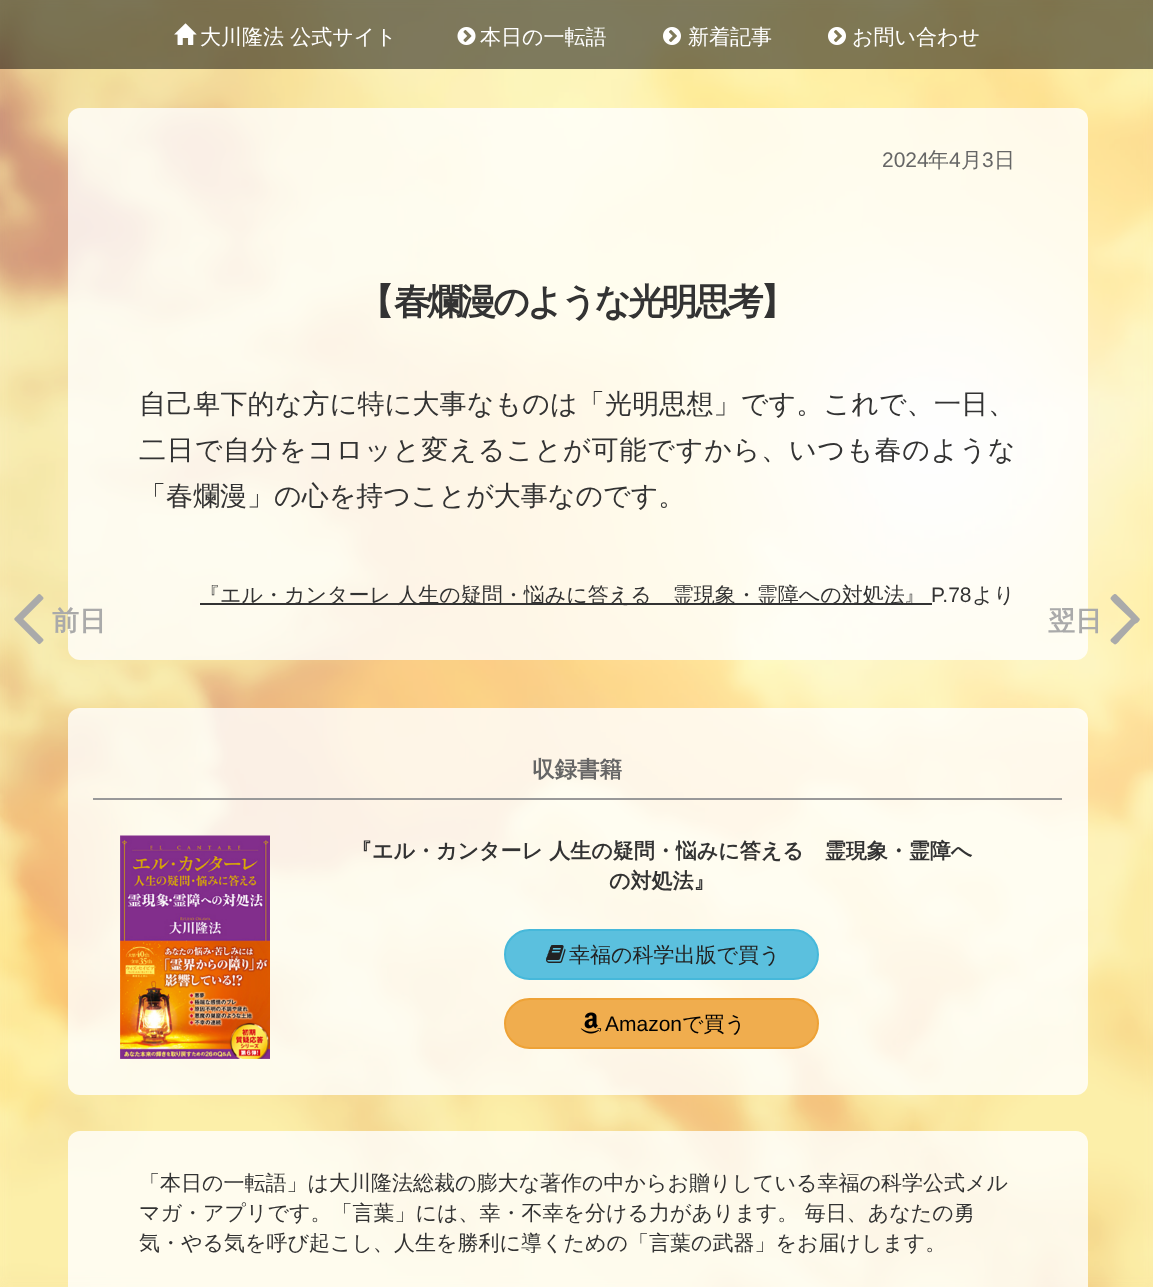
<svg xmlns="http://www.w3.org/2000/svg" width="1153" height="1287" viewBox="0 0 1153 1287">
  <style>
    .t1 { font: 500 21px WenQuanYi Zen Hei; fill: #fff; }
    .t2 { font: bold 27px WenQuanYi Zen Hei; fill: #aaa; }
    .t3 { font: 21px Liberation Sans; fill: #666; }
    .t4 { font: 500 21px WenQuanYi Zen Hei; fill: #666; }
    .t5 { font: bold 36px WenQuanYi Zen Hei; fill: #333; }
    .t6 { font: bold 36px WenQuanYi Zen Hei; letter-spacing: -3px; fill: #333; }
    .t7 { font: 500 27px WenQuanYi Zen Hei; letter-spacing: 0.15px; fill: #333; }
    .t8 { font: 500 27px WenQuanYi Zen Hei; letter-spacing: 0.85px; fill: #333; }
    .t9 { font: 500 27px WenQuanYi Zen Hei; fill: #333; }
    .t10 { font: 500 21px WenQuanYi Zen Hei; fill: #333; }
    .t11 { font: 21px Liberation Sans; fill: #333; }
    .t12 { font: bold 22.5px WenQuanYi Zen Hei; fill: #666; }
    .t13 { font: bold 21px WenQuanYi Zen Hei; fill: #333; }
    .t14 { font: 500 21px WenQuanYi Zen Hei; fill: #222; }
    .t15 { font: 21px Liberation Sans; fill: #000; }
    .t16 { font: 500 21px WenQuanYi Zen Hei; fill: #000; }
  </style>
  <rect width="100%" height="100%" fill="#fff"/>
  <image x="0" y="0" width="1153" height="1287" href="images/1.png"/>
  <image x="0" y="0" width="1153" height="1287" href="images/2.png"/>
  <rect x="0" y="0" width="1153" height="69" fill="#00000080"/>
  <image x="174" y="23" width="23" height="22" href="images/3.png"/>
  <text x="200" y="44" class="t1">大川隆法 公式サイト</text>
  <image x="457" y="27" width="19" height="18" href="images/4.png"/>
  <text x="480" y="44" class="t1">本日の一転語</text>
  <image x="663" y="27" width="18" height="18" href="images/5.png"/>
  <text x="688" y="44" class="t1">新着記事</text>
  <image x="828" y="27" width="18" height="18" href="images/6.png"/>
  <text x="852" y="44" class="t1">お問い合わせ</text>
  <image x="14" y="594" width="30" height="51" href="images/7.png"/>
  <rect x="68" y="108" width="1020" height="552" rx="12" fill="#ffffffcc"/>
  <text x="52" y="630" class="t2">前日</text>
  <text x="882" y="167" class="t3">2024</text>
  <text x="928" y="167" class="t4">年</text>
  <text x="949" y="167" class="t3">4</text>
  <text x="961" y="167" class="t4">月</text>
  <text x="982" y="167" class="t3">3</text>
  <text x="994" y="167" class="t4">日</text>
  <text x="358" y="314" class="t5">【</text>
  <text x="394" y="314" class="t6">春爛漫のような光明思考</text>
  <text x="760" y="314" class="t5">】</text>
  <text x="139" y="413" class="t7">自己卑下的な方に特に大事なものは「光明思想」です。これで、一日、</text>
  <text x="139" y="459" class="t8">二日で自分をコロッと変えることが可能ですから、いつも春のような</text>
  <text x="139" y="505" class="t9">「春爛漫」の心を持つことが大事なのです。</text>
  <text x="199" y="602" class="t10">『</text>
  <rect x="200" y="603" width="732" height="2" fill="#333"/>
  <text x="220" y="602" class="t10">エル・カンターレ 人生の疑問・悩みに答える　霊現象・霊障への対処法</text>
  <text x="904" y="602" class="t10">』</text>
  <text x="931" y="602" class="t11">P.78</text>
  <text x="972" y="602" class="t10">より</text>
  <rect x="68" y="708" width="1020" height="387" rx="12" fill="#ffffffcc"/>
  <rect x="93" y="798" width="969" height="2" fill="#999"/>
  <text x="532" y="777" class="t12">収録書籍</text>
  <image x="120" y="835" width="150" height="224" href="images/8.png"/>
  <text x="351" y="858" class="t13">『エル・カンターレ 人生の疑問・悩みに答える　霊現象・霊障へ</text>
  <text x="609" y="888" class="t13">の対処法』</text>
  <rect x="505" y="930" width="313" height="49" rx="24.5" fill="#5bc0de" stroke="#46b8da" stroke-width="2"/>
  <image x="546" y="945" width="20" height="18" href="images/9.png"/>
  <text x="569" y="962" class="t14">幸福の科学出版で買う</text>
  <rect x="505" y="999" width="313" height="49" rx="24.5" fill="#f0ad4e" stroke="#eea236" stroke-width="2"/>
  <image x="580" y="1012" width="22" height="22" href="images/10.png"/>
  <text x="605" y="1031" class="t15">Amazon</text>
  <text x="682" y="1031" class="t16">で買う</text>
  <rect x="68" y="1131" width="1020" height="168" rx="12" fill="#ffffffcc"/>
  <text x="139" y="1190" class="t10">「本日の一転語」は大川隆法総裁の膨大な著作の中からお贈りしている幸福の科学公式メル</text>
  <text x="139" y="1220" class="t10">マガ・アプリです。「言葉」には、幸・不幸を分ける力があります。 毎日、あなたの勇</text>
  <text x="139" y="1250" class="t10">気・やる気を呼び起こし、人生を勝利に導くための「言葉の武器」をお届けします。</text>
  <text x="1048" y="630" class="t2">翌日</text>
  <path d="M1139 618C1142 620 1136 624 1135 624L1120 640C1120 640 1116 646 1114 644C1113 643 1109 641 1111 639L1131 619L1114 603C1111 599 1109 599 1112 596C1116 592 1116 595 1120 598Z" fill="#aaa"/>
</svg>
